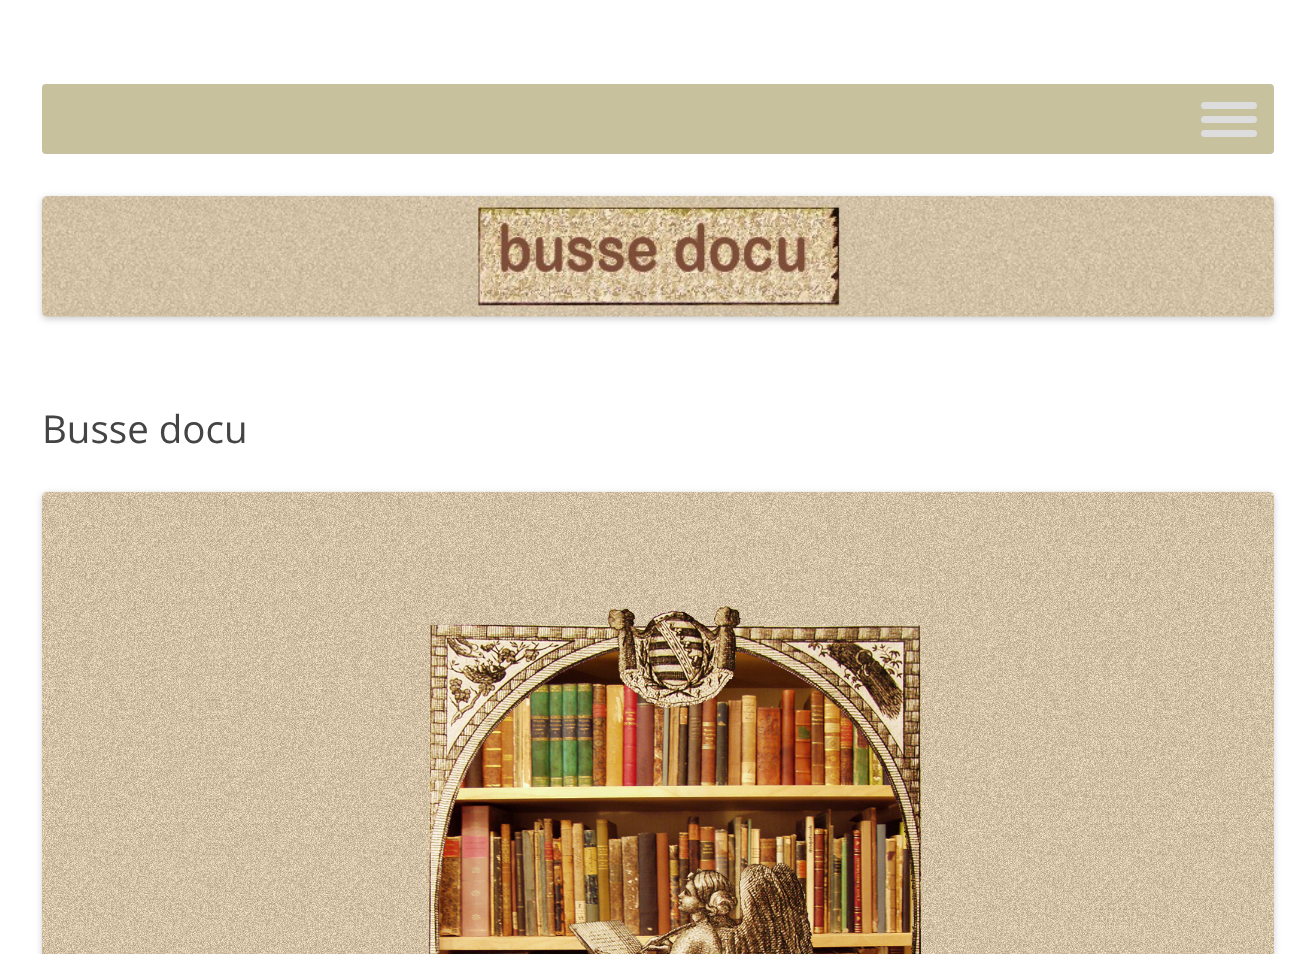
<svg xmlns="http://www.w3.org/2000/svg" width="1315" height="954" viewBox="0 0 1315 954">
  <style>
    .t1 { font: 38.5px Open Sans; fill: #444; }
  </style>
  <rect width="100%" height="100%" fill="#fff"/>
  <rect x="42" y="84" width="1232" height="70" rx="4" fill="#c8c19e"/>
  <rect x="1201" y="102" width="56" height="7" rx="3.5" fill="#ddd"/>
  <rect x="1201" y="116" width="56" height="7" rx="3.5" fill="#ddd"/>
  <rect x="1201" y="130" width="56" height="7" rx="3.5" fill="#ddd"/>
  <rect x="42" y="198" width="1232" height="121" rx="5" fill="#00000033" filter="blur(3.5px)"/>
  <image x="42" y="196" width="1232" height="121" href="images/1.png"/>
  <text x="42" y="443" class="t1">Busse docu</text>
  <rect x="42" y="494" width="1232" height="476" rx="5" fill="#00000033" filter="blur(3.5px)"/>
  <image x="42" y="491" width="1232" height="463" href="images/2.png"/>
</svg>
